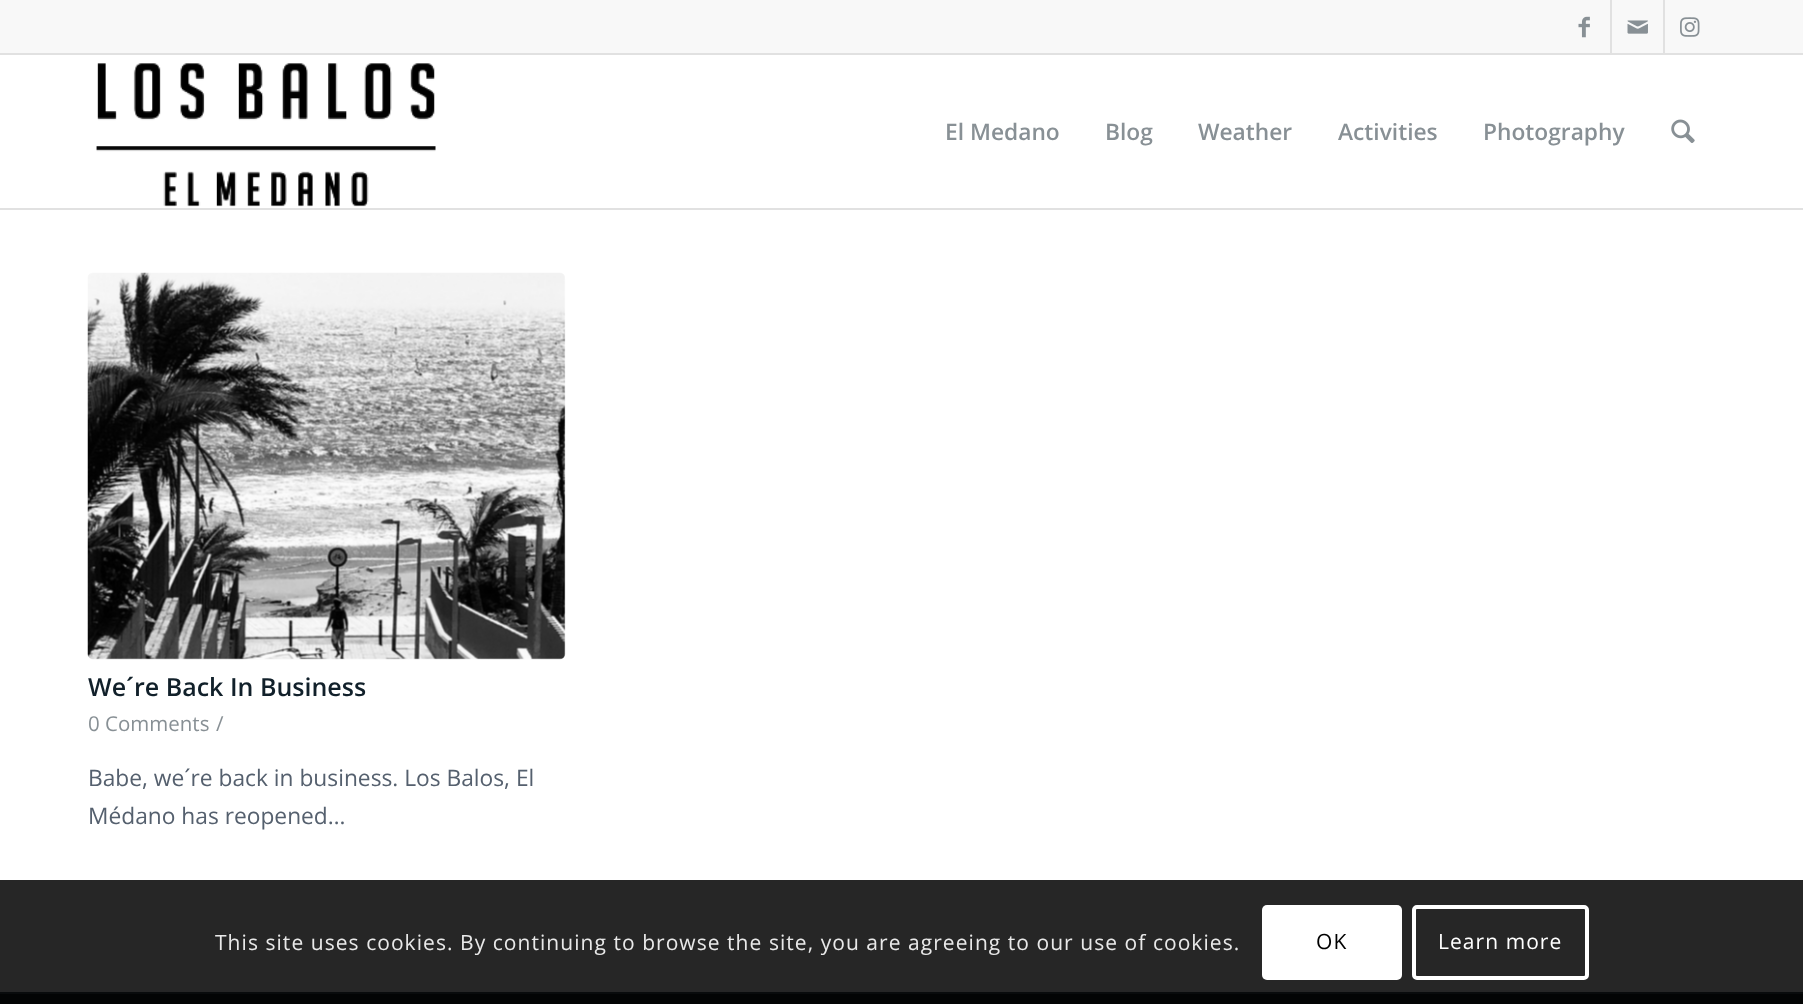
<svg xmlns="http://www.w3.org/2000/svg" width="1803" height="1004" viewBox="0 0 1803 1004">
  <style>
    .t1 { font: 600 22.75px Open Sans; fill: #889095; }
    .t2 { font: 600 25px Open Sans; fill: #11202a; }
    .t3 { font: 20.5px Open Sans; fill: #889095; }
    .t4 { font: 22.75px Open Sans; fill: #55606e; }
    .t5 { font: 21px Open Sans; letter-spacing: 1.05px; fill: #e9e9e9; }
    .t6 { font: 21px Open Sans; letter-spacing: 1.05px; fill: #000; }
    .t7 { font: 21px Open Sans; letter-spacing: 1.05px; fill: #fff; }
  </style>
  <rect width="100%" height="100%" fill="#fff"/>
  <rect x="0" y="0" width="1803" height="53" fill="#f8f8f8"/>
  <rect x="0" y="53" width="1803" height="2" fill="#e1e1e1"/>
  <rect x="1610" y="0" width="2" height="53" fill="#e1e1e1"/>
  <image x="1578" y="16" width="12" height="22" href="images/1.png"/>
  <rect x="1663" y="0" width="2" height="53" fill="#e1e1e1"/>
  <image x="1627" y="20" width="21" height="14" href="images/2.png"/>
  <image x="1680" y="17" width="20" height="20" href="images/3.png"/>
  <rect x="0" y="208" width="1803" height="2" fill="#e1e1e1"/>
  <image x="96" y="63" width="340" height="144" href="images/4.png"/>
  <text x="945" y="140" class="t1">El Medano</text>
  <text x="1105" y="140" class="t1">Blog</text>
  <text x="1198" y="140" class="t1">Weather</text>
  <text x="1338" y="140" class="t1">Activities</text>
  <text x="1483" y="140" class="t1">Photography</text>
  <image x="1671" y="119" width="24" height="24" href="images/5.png"/>
  <rect x="0" y="880" width="1803" height="112" fill="#262626"/>
  <rect x="88" y="273" width="477" height="387" rx="5" fill="#fcfcfc"/>
  <image x="87" y="272" width="479" height="388" href="images/6.png"/>
  <text x="88" y="696" class="t2">We´re Back In Business</text>
  <text x="88" y="731" class="t3">0 Comments</text>
  <text x="216" y="731" class="t3">/</text>
  <text x="88" y="786" class="t4">Babe, we´re back in business. Los Balos, El</text>
  <text x="88" y="824" class="t4">Médano has reopened…</text>
  <rect x="0" y="994" width="1803" height="10" fill="#030404"/>
  <rect x="0" y="992" width="1803" height="2" fill="#090b0c"/>
  <text x="215" y="950" class="t5">This site uses cookies. By continuing to browse the site, you are agreeing to our use of cookies.</text>
  <rect x="1262" y="905" width="140" height="75" rx="5" fill="#fff"/>
  <text x="1316" y="949" class="t6">OK</text>
  <rect x="1414" y="907" width="173" height="71" rx="3" fill="none" stroke="#fff" stroke-width="4"/>
  <text x="1438" y="949" class="t7">Learn more</text>
</svg>
